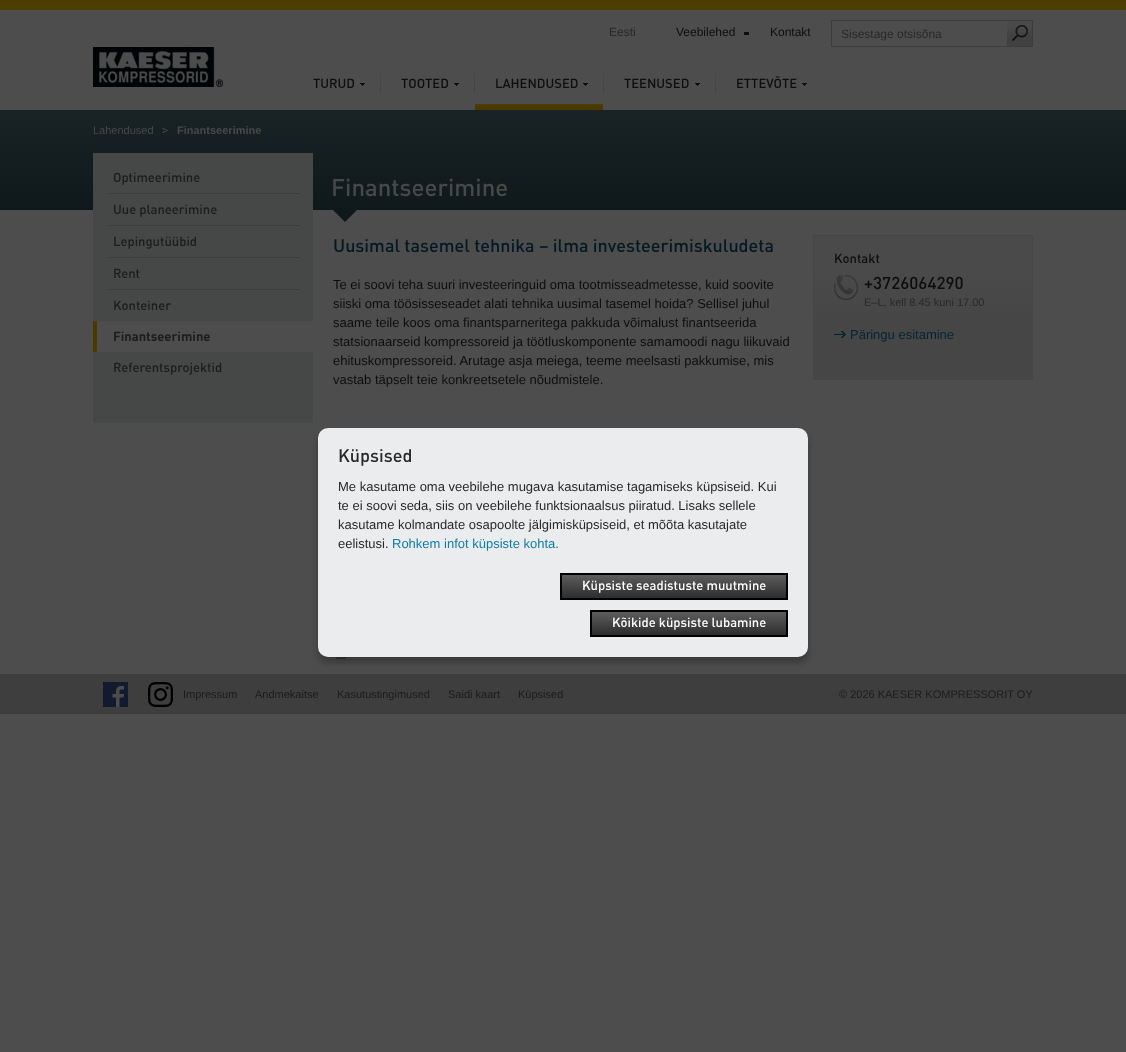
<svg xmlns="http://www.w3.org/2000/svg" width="1126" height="1052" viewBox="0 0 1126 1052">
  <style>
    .t1 { font: 12px Liberation Sans; fill: #292929; }
    .t2 { font: 12px Liberation Sans; fill: #0e0e0e; }
    .t3 { font: 500 13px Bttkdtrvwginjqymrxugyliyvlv; fill: #0e0e0e; }
    .t4 { font: 11px Liberation Sans; fill: #484848; }
    .t5 { font: bold 11px Liberation Sans; fill: #484848; }
    .t6 { font: 500 24px Bttkdtrvwginjqymrxugyliyvlv; fill: #484848; }
    .t7 { font: 500 13px Bttkdtrvwginjqymrxugyliyvlv; fill: #1c1c1c; }
    .t8 { font: bold 13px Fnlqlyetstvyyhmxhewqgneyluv; fill: #1c1c1c; }
    .t9 { font: 500 18px Bttkdtrvwginjqymrxugyliyvlv; fill: #031a24; }
    .t10 { font: 13px Liberation Sans; fill: #0e0e0e; }
    .t11 { font: 500 17px Bttkdtrvwginjqymrxugyliyvlv; fill: #0e0e0e; }
    .t12 { font: 11px Liberation Sans; fill: #292929; }
    .t13 { font: 13px Liberation Sans; fill: #052533; }
    .t14 { font: 11px Liberation Sans; fill: #1c1c1c; }
    .t15 { font: 500 18px Bttkdtrvwginjqymrxugyliyvlv; fill: #292929; }
    .t16 { font: 13px Liberation Sans; fill: #292929; }
    .t17 { font: 13px Liberation Sans; fill: #107caa; }
    .t18 { font: 500 13px Bttkdtrvwginjqymrxugyliyvlv; fill: #fff; }
  </style>
  <defs>
    <linearGradient id="g1" gradientUnits="userSpaceOnUse" x1="1020" y1="21" x2="1020" y2="46"><stop offset="0.23" stop-color="#4a4a4a"/><stop offset="0.62" stop-color="#414141"/></linearGradient>
    <linearGradient id="g2" gradientUnits="userSpaceOnUse" x1="563" y1="110" x2="563" y2="210"><stop offset="0" stop-color="#192326"/><stop offset="1" stop-color="#0f181b"/></linearGradient>
    <linearGradient id="g3" gradientUnits="userSpaceOnUse" x1="99" y1="337" x2="91" y2="336"><stop offset="0" stop-color="#4c3d00"/><stop offset="1" stop-color="#4b3500"/></linearGradient>
    <linearGradient id="g4" gradientUnits="userSpaceOnUse" x1="923" y1="236" x2="923" y2="379"><stop offset="0.23" stop-color="#4a4a4a"/><stop offset="0.62" stop-color="#464646"/></linearGradient>
    <linearGradient id="g5" gradientUnits="userSpaceOnUse" x1="674" y1="575" x2="674" y2="598"><stop offset="0" stop-color="#5d5d5d"/><stop offset="1" stop-color="#2d2d2d"/></linearGradient>
    <linearGradient id="g6" gradientUnits="userSpaceOnUse" x1="689" y1="612" x2="689" y2="635"><stop offset="0" stop-color="#5d5d5d"/><stop offset="1" stop-color="#2d2d2d"/></linearGradient>
  </defs>
  <rect width="100%" height="100%" fill="#4d4d4d"/>
  <rect x="0" y="0" width="1126" height="10" fill="#4d3e00"/>
  <text x="609" y="36" class="t1">Eesti</text>
  <rect x="744" y="32" width="5" height="3" fill="#0e0e0e"/>
  <text x="676" y="36" class="t2">Veebilehed</text>
  <text x="770" y="36" class="t2">Kontakt</text>
  <rect x="831" y="20" width="202" height="1" fill="#3c3c3c"/>
  <rect x="831" y="46" width="176" height="1" fill="#3c3c3c"/>
  <rect x="831" y="20" width="1" height="27" fill="#3c3c3c"/>
  <text x="841" y="38" class="t1">Sisestage otsisõna</text>
  <rect x="1007" y="21" width="25" height="25" fill="url(#g1)"/>
  <rect x="1032" y="20" width="1" height="27" fill="#3c3c3c"/>
  <rect x="1007" y="46" width="26" height="1" fill="#3c3c3c"/>
  <image x="1012" y="25" width="16" height="16" href="images/1.png"/>
  <image x="93" y="47" width="130" height="40" href="images/2.png"/>
  <rect x="380" y="73" width="1" height="20" fill="#454545"/>
  <image x="360" y="83" width="5" height="3" href="images/3.png"/>
  <text x="313" y="88" class="t3">TURUD</text>
  <rect x="474" y="73" width="1" height="20" fill="#454545"/>
  <image x="454" y="83" width="5" height="3" href="images/3.png"/>
  <text x="401" y="88" class="t3">TOOTED</text>
  <rect x="603" y="73" width="1" height="20" fill="#454545"/>
  <image x="583" y="83" width="5" height="3" href="images/3.png"/>
  <text x="495" y="88" class="t3">LAHENDUSED</text>
  <image x="475" y="104" width="128" height="6" href="images/4.png"/>
  <rect x="715" y="73" width="1" height="20" fill="#454545"/>
  <image x="695" y="83" width="5" height="3" href="images/3.png"/>
  <text x="624" y="88" class="t3">TEENUSED</text>
  <image x="802" y="83" width="5" height="3" href="images/3.png"/>
  <text x="736" y="88" class="t3">ETTEVÕTE</text>
  <rect x="0" y="110" width="1126" height="100" fill="url(#g2)"/>
  <image x="162" y="128" width="6" height="5" href="images/5.png"/>
  <text x="93" y="134" class="t4">Lahendused</text>
  <text x="177" y="134" class="t5">Finantseerimine</text>
  <text x="331" y="196" class="t6">Finantseerimine</text>
  <path d="M333 210H357L345 222Z" fill="#0f181b"/>
  <rect x="93" y="153" width="220" height="270" fill="#464747"/>
  <text x="113" y="182" class="t7">Optimeerimine</text>
  <path d="M108 193.5H299" fill="none" stroke="#333" stroke-dasharray="1 1"/>
  <text x="113" y="214" class="t7">Uue planeerimine</text>
  <path d="M108 225.5H299" fill="none" stroke="#333" stroke-dasharray="1 1"/>
  <text x="113" y="246" class="t7">Lepingutüübid</text>
  <path d="M108 257.5H299" fill="none" stroke="#333" stroke-dasharray="1 1"/>
  <text x="113" y="278" class="t7">Rent</text>
  <path d="M108 289.5H299" fill="none" stroke="#333" stroke-dasharray="1 1"/>
  <text x="113" y="310" class="t7">Konteiner</text>
  <rect x="97" y="321" width="216" height="31" fill="#4d4d4d"/>
  <rect x="93" y="321" width="4" height="31" fill="url(#g3)"/>
  <text x="113" y="341" class="t8">Finantseerimine</text>
  <text x="113" y="372" class="t7">Referentsprojektid</text>
  <text x="333" y="252" class="t9">Uusimal tasemel tehnika – ilma investeerimiskuludeta</text>
  <text x="333" y="289" class="t10">Te ei soovi teha suuri investeeringuid oma tootmisseadmetesse, kuid soovite</text>
  <text x="333" y="308" class="t10">siiski oma töösisseseadet alati tehnika uusimal tasemel hoida? Sellisel juhul</text>
  <text x="333" y="327" class="t10">saame teile koos oma finantsparneritega pakkuda võimalust finantseerida</text>
  <text x="333" y="346" class="t10">statsionaarseid kompressoreid ja töötluskomponente samamoodi nagu liikuvaid</text>
  <text x="333" y="365" class="t10">ehituskompressoreid. Arutage asja meiega, teeme meelsasti pakkumise, mis</text>
  <text x="333" y="384" class="t10">vastab täpselt teie konkreetsetele nõudmistele.</text>
  <rect x="814" y="236" width="218" height="143" fill="url(#g4)"/>
  <rect x="813.5" y="235.5" width="219" height="144" fill="none" stroke="#464646"/>
  <text x="834" y="263" class="t3">Kontakt</text>
  <image x="834" y="275" width="24" height="25" href="images/6.png"/>
  <text x="864" y="289" class="t11">+3726064290</text>
  <text x="864" y="306" class="t12">E–L, kell 8.45 kuni 17.00</text>
  <image x="834" y="331" width="12" height="7" href="images/7.png"/>
  <text x="850" y="339" class="t13">Päringu esitamine</text>
  <image x="333" y="657" width="21" height="2" href="images/8.png"/>
  <rect x="0" y="674" width="1126" height="40" fill="#3e3e3e"/>
  <image x="103" y="682" width="25" height="25" href="images/9.png"/>
  <image x="148" y="682" width="25" height="25" href="images/10.png"/>
  <text x="183" y="698" class="t14">Impressum</text>
  <text x="255" y="698" class="t14">Andmekaitse</text>
  <text x="337" y="698" class="t14">Kasutustingimused</text>
  <text x="448" y="698" class="t14">Saidi kaart</text>
  <text x="518" y="698" class="t14">Küpsised</text>
  <text x="839" y="698" class="t14">© 2026 KAESER KOMPRESSORIT OY</text>
  <rect x="318" y="434" width="490" height="229" rx="10" fill="#00000040" filter="blur(3px)"/>
  <rect x="318" y="428" width="490" height="229" rx="10" fill="#ebecee"/>
  <text x="338" y="462" class="t15">Küpsised</text>
  <text x="338" y="491" class="t16">Me kasutame oma veebilehe mugava kasutamise tagamiseks küpsiseid. Kui</text>
  <text x="338" y="510" class="t16">te ei soovi seda, siis on veebilehe funktsionaalsus piiratud. Lisaks sellele</text>
  <text x="338" y="529" class="t16">kasutame kolmandate osapoolte jälgimisküpsiseid, et mõõta kasutajate</text>
  <text x="338" y="548" class="t16">eelistusi.</text>
  <text x="392" y="548" class="t17">Rohkem infot küpsiste kohta.</text>
  <rect x="562" y="575" width="224" height="23" fill="url(#g5)"/>
  <rect x="561" y="574" width="226" height="25" fill="none" stroke="#000" stroke-width="2"/>
  <text x="582" y="590" class="t18">Küpsiste seadistuste muutmine</text>
  <rect x="592" y="612" width="194" height="23" fill="url(#g6)"/>
  <rect x="591" y="611" width="196" height="25" fill="none" stroke="#000" stroke-width="2"/>
  <text x="612" y="627" class="t18">Kõikide küpsiste lubamine</text>
</svg>
